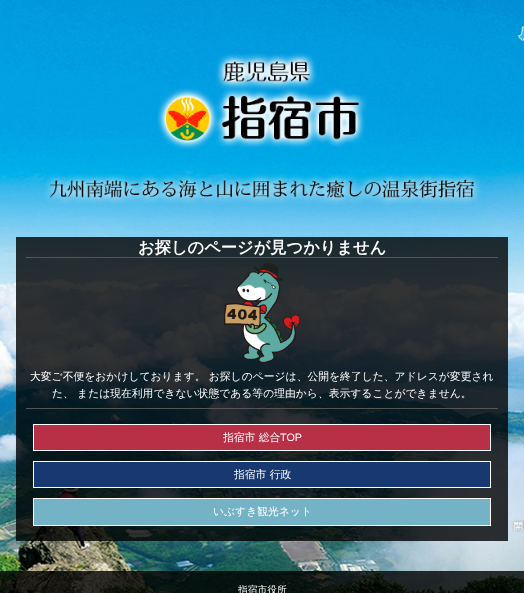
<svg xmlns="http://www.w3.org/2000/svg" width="524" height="593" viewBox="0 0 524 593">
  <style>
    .t1 { font: bold 16.25px WenQuanYi Zen Hei; fill: #fff; }
    .t2 { font: 500 10.8px WenQuanYi Zen Hei; fill: #fff; }
    .t3 { font: 10.8px Liberation Sans; fill: #fff; }
    .t4 { font: 500 9.75px WenQuanYi Zen Hei; fill: #fff; }
  </style>
  <rect width="100%" height="100%" fill="#fff"/>
  <image x="0" y="0" width="524" height="593" href="images/1.png"/>
  <image x="518" y="25" width="6" height="16" href="images/2.png"/>
  <image x="157" y="53" width="210" height="96" href="images/3.png"/>
  <image x="44" y="173" width="437" height="32" href="images/4.png"/>
  <rect x="16" y="237" width="492" height="304" fill="#000000cc"/>
  <rect x="26" y="257" width="472" height="1" fill="#555"/>
  <text x="138" y="253" class="t1">お探しのページが見つかりません</text>
  <image x="224" y="263" width="76" height="100" href="images/5.png"/>
  <text x="30" y="380" class="t2">大変ご不便をおかけしております。 お探しのページは、公開を終了した、アドレスが変更され</text>
  <text x="52" y="397" class="t2">た、 または現在利用できない状態である等の理由から、表示することができません。</text>
  <rect x="26" y="408" width="472" height="1" fill="#555"/>
  <rect x="33.5" y="424.5" width="457" height="26" fill="#b73046" stroke="#fff"/>
  <text x="223" y="441" class="t2">指宿市 総合</text>
  <text x="280" y="441" class="t3">TOP</text>
  <rect x="33.5" y="461.5" width="457" height="26" fill="#173870" stroke="#fff"/>
  <text x="234" y="478" class="t2">指宿市 行政</text>
  <rect x="33.5" y="498.5" width="457" height="27" fill="#74b3c5" stroke="#fff"/>
  <text x="213" y="515" class="t2">いぶすき観光ネット</text>
  <rect x="0" y="571" width="524" height="22" fill="#000000cc"/>
  <text x="238" y="593" class="t4">指宿市役所</text>
</svg>
